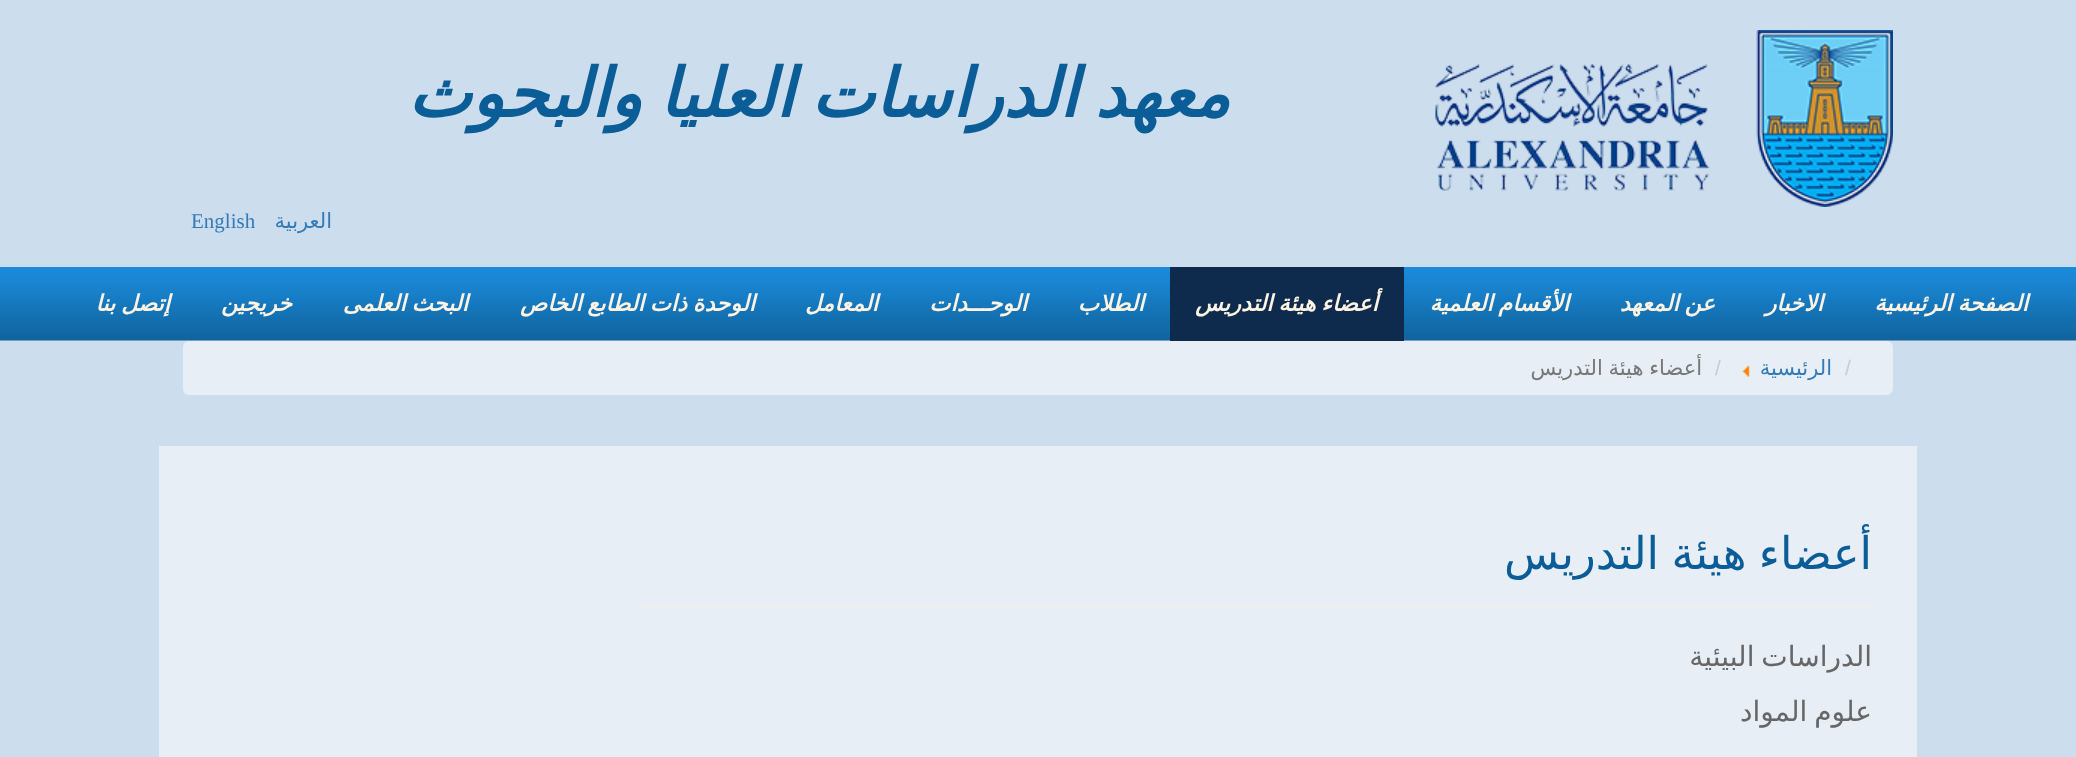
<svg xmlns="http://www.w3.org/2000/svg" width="2076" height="757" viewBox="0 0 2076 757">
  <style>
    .t1 { font: italic bold 67.5px DejaVu Sans; direction: rtl; fill: #0a5d97; }
    .t2 { font: 21px DejaVu Sans; direction: rtl; fill: #337ab7; }
    .t3 { font: 21px Liberation Serif; fill: #337ab7; }
    .t4 { font: italic bold 22.5px DejaVu Sans; direction: rtl; fill: #fff4e3; }
    .t5 { font: 21px Liberation Sans; fill: #ccc; }
    .t6 { font: 21px DejaVu Sans; direction: rtl; fill: #777; }
    .t7 { font: 45px DejaVu Sans; direction: rtl; fill: #0a5d97; }
    .t8 { font: 28px DejaVu Sans; direction: rtl; fill: #666; }
  </style>
  <rect width="100%" height="100%" fill="#cde"/>
  <image x="1435" y="30" width="458" height="177" href="images/1.png"/>
  <text x="1230" y="117" word-spacing="-4.5" class="t1">معهد الدراسات العليا والبحوث</text>
  <text x="332" y="228" class="t2">العربية</text>
  <text x="191" y="228" class="t3">English</text>
  <image x="0" y="267" width="2076" height="74" href="images/2.png"/>
  <text x="2028" y="311" word-spacing="-1.5" class="t4">الصفحة الرئيسية</text>
  <text x="1823" y="311" class="t4">الاخبار</text>
  <text x="1715" y="311" word-spacing="-1.5" class="t4">عن المعهد</text>
  <text x="1569" y="311" word-spacing="-1.5" class="t4">الأقسام العلمية</text>
  <rect x="1170" y="267" width="234" height="74" fill="#0e2b4d"/>
  <text x="1378" y="311" word-spacing="-1.5" class="t4">أعضاء هيئة التدريس</text>
  <text x="1144" y="311" class="t4">الطلاب</text>
  <text x="1027" y="311" class="t4">الوحـــدات</text>
  <text x="878" y="311" class="t4">المعامل</text>
  <text x="755" y="311" word-spacing="-1.5" class="t4">الوحدة ذات الطابع الخاص</text>
  <text x="468" y="311" word-spacing="-1.5" class="t4">البحث العلمى</text>
  <text x="292" y="311" class="t4">خريجين</text>
  <text x="170" y="311" word-spacing="-1.5" class="t4">إتصل بنا</text>
  <rect x="183" y="341" width="1710" height="54" rx="6" fill="#e7eef5"/>
  <text x="1845" y="375" class="t5">/</text>
  <text x="1832" y="375" class="t2">الرئيسية</text>
  <image x="1742" y="365" width="8" height="12" href="images/3.png"/>
  <text x="1715" y="375" class="t5">/</text>
  <text x="1702" y="375" word-spacing="-1" class="t6">أعضاء هيئة التدريس</text>
  <rect x="159" y="446" width="1758" height="311" fill="#e7eef5"/>
  <rect x="633" y="606" width="1239" height="2" fill="#eee"/>
  <text x="1872" y="569" word-spacing="-2" class="t7">أعضاء هيئة التدريس</text>
  <text x="1872" y="666" word-spacing="-2" class="t8">الدراسات البيئية</text>
  <text x="1872" y="721" word-spacing="-2" class="t8">علوم المواد</text>
</svg>
